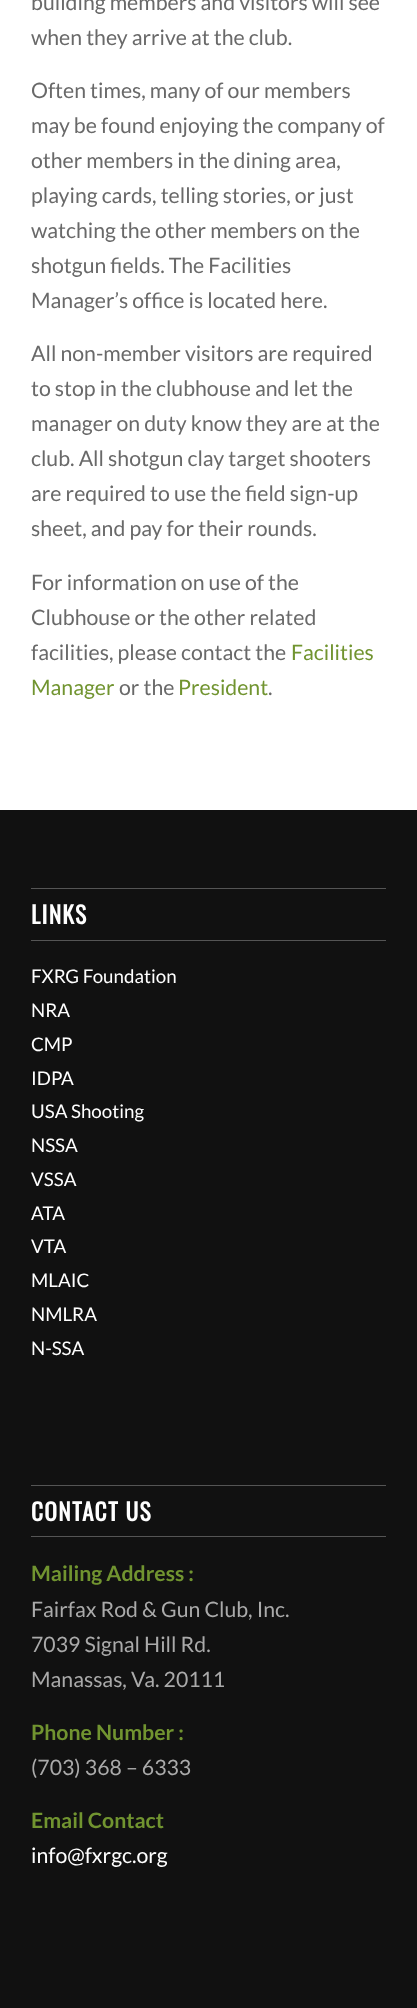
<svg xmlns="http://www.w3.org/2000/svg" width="417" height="2008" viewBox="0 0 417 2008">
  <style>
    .t1 { font: 21.25px Lato; fill: #696969; }
    .t2 { font: 21.25px Lato; fill: #719430; }
    .t3 { font: bold 23.5px Oswald; letter-spacing: 1.25px; fill: #fff; }
    .t4 { font: 18.75px Lato; fill: #fff; }
    .t5 { font: bold 21.25px Lato; fill: #719430; }
    .t6 { font: 21.25px Lato; fill: #aaa; }
    .t7 { font: 21.25px Lato; fill: #fff; }
  </style>
  <rect width="100%" height="100%" fill="#fff"/>
  <text x="31" y="10" class="t1">building members and visitors will see</text>
  <text x="31" y="45" class="t1">when they arrive at the club.</text>
  <text x="31" y="98" class="t1">Often times, many of our members</text>
  <text x="31" y="133" class="t1">may be found enjoying the company of</text>
  <text x="31" y="168" class="t1">other members in the dining area,</text>
  <text x="31" y="203" class="t1">playing cards, telling stories, or just</text>
  <text x="31" y="238" class="t1">watching the other members on the</text>
  <text x="31" y="273" class="t1">shotgun fields. The Facilities</text>
  <text x="31" y="308" class="t1">Manager’s office is located here.</text>
  <text x="31" y="361" class="t1">All non-member visitors are required</text>
  <text x="31" y="396" class="t1">to stop in the clubhouse and let the</text>
  <text x="31" y="431" class="t1">manager on duty know they are at the</text>
  <text x="31" y="466" class="t1">club. All shotgun clay target shooters</text>
  <text x="31" y="501" class="t1">are required to use the field sign-up</text>
  <text x="31" y="536" class="t1">sheet, and pay for their rounds.</text>
  <text x="31" y="590" class="t1">For information on use of the</text>
  <text x="31" y="625" class="t1">Clubhouse or the other related</text>
  <text x="31" y="660" class="t1">facilities, please contact the</text>
  <text x="291" y="660" class="t2">Facilities</text>
  <text x="31" y="695" class="t2">Manager</text>
  <text x="119" y="695" class="t1">or the</text>
  <text x="178" y="695" class="t2">President</text>
  <text x="268" y="695" class="t1">.</text>
  <rect x="0" y="810" width="417" height="1198" fill="#111"/>
  <rect x="31" y="888" width="355" height="1" fill="#555"/>
  <rect x="31" y="940" width="355" height="1" fill="#555"/>
  <text x="31" y="924" class="t3">LINKS</text>
  <text x="31" y="983" class="t4">FXRG Foundation</text>
  <text x="31" y="1017" class="t4">NRA</text>
  <text x="31" y="1051" class="t4">CMP</text>
  <text x="31" y="1085" class="t4">IDPA</text>
  <text x="31" y="1118" class="t4">USA Shooting</text>
  <text x="31" y="1152" class="t4">NSSA</text>
  <text x="31" y="1186" class="t4">VSSA</text>
  <text x="31" y="1220" class="t4">ATA</text>
  <text x="31" y="1253" class="t4">VTA</text>
  <text x="31" y="1287" class="t4">MLAIC</text>
  <text x="31" y="1321" class="t4">NMLRA</text>
  <text x="31" y="1355" class="t4">N-SSA</text>
  <rect x="31" y="1485" width="355" height="1" fill="#555"/>
  <rect x="31" y="1536" width="355" height="1" fill="#555"/>
  <text x="31" y="1521" class="t3">CONTACT US</text>
  <text x="31" y="1581" class="t5">Mailing Address :</text>
  <text x="31" y="1617" class="t6">Fairfax Rod &amp; Gun Club, Inc.</text>
  <text x="31" y="1652" class="t6">7039 Signal Hill Rd.</text>
  <text x="31" y="1687" class="t6">Manassas, Va. 20111</text>
  <text x="31" y="1740" class="t5">Phone Number :</text>
  <text x="31" y="1775" class="t6">(703) 368 – 6333</text>
  <text x="31" y="1828" class="t5">Email Contact</text>
  <text x="31" y="1863" class="t7">info@fxrgc.org</text>
</svg>
